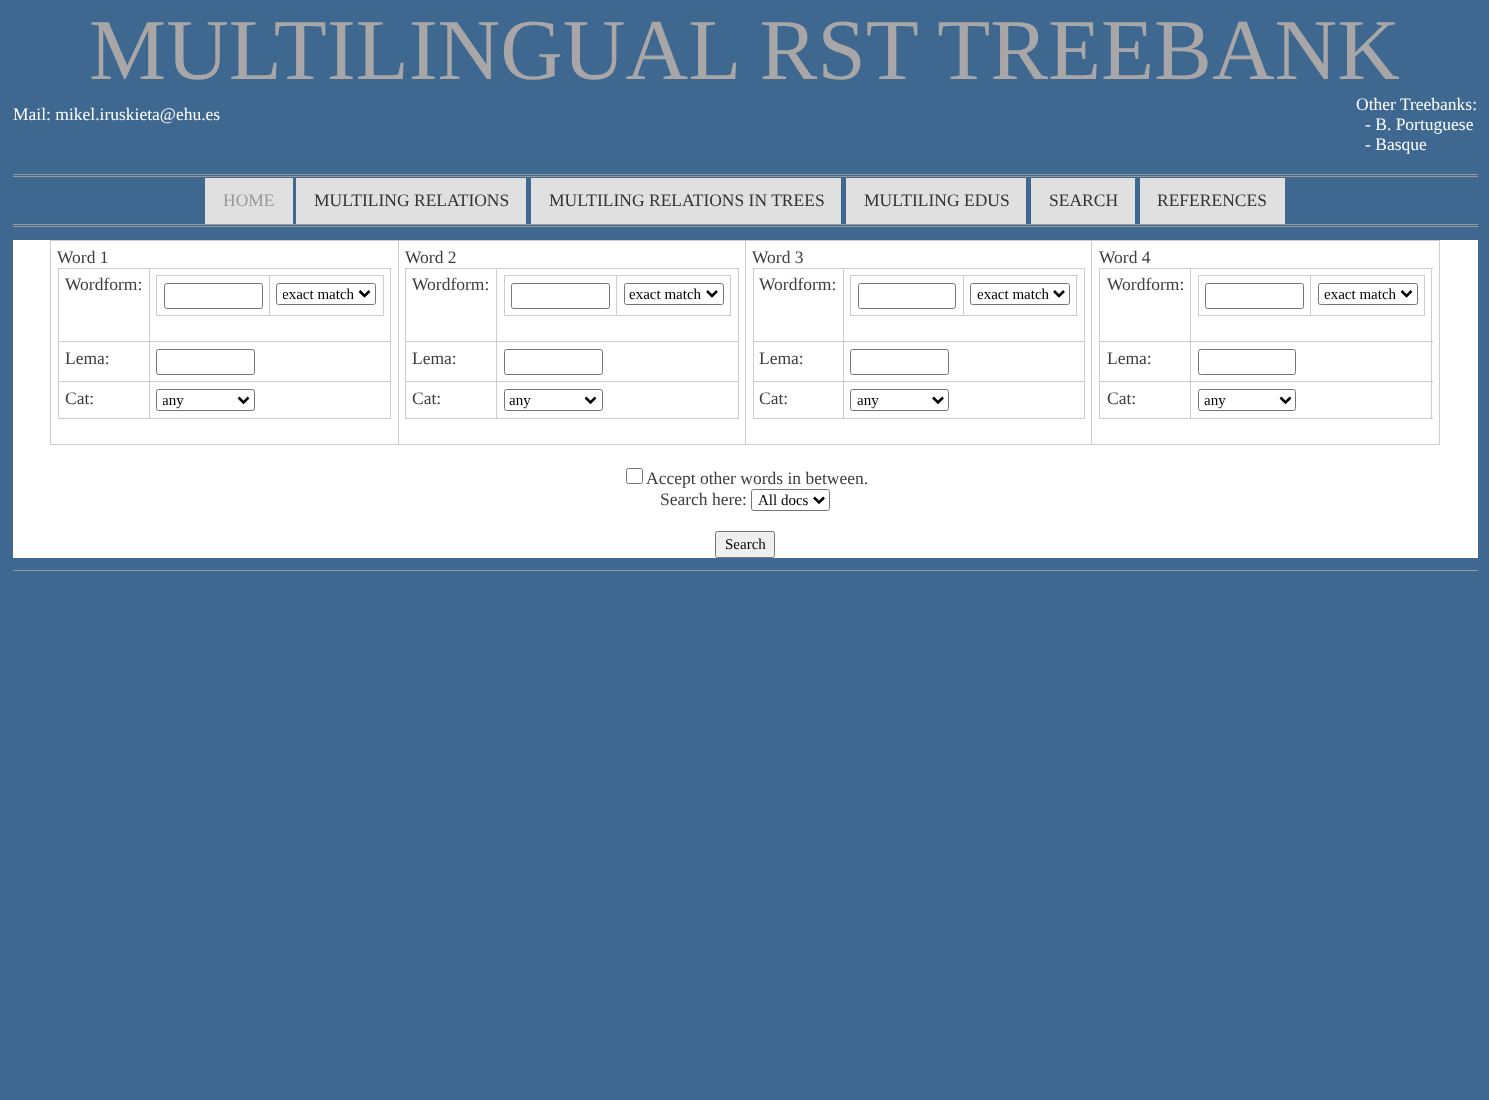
<svg xmlns="http://www.w3.org/2000/svg" width="1489" height="1100" viewBox="0 0 1489 1100">
  <style>
    .t1 { font: 86.75px Liberation Serif; fill: #a8a6a6; }
    .t2 { font: 17.5px Liberation Serif; fill: #fff; }
    .t3 { font: 17.5px Liberation Serif; fill: #999; }
    .t4 { font: 17.5px Liberation Serif; fill: #333; }
    .t5 { font: 17.5px Liberation Serif; fill: #423c3c; }
    .t6 { font: 15px Liberation Serif; fill: #000; }
  </style>
  <defs>
    <clipPath id="clip1"><rect x="283" y="284" width="72" height="20"/></clipPath>
    <clipPath id="clip2"><rect x="163" y="390" width="71" height="20"/></clipPath>
  </defs>
  <rect width="100%" height="100%" fill="#3e688f"/>
  <text x="89" y="79" class="t1">MULTILINGUAL RST TREEBANK</text>
  <rect x="13" y="174" width="1465" height="1" fill="#999"/>
  <text x="13" y="120" class="t2">Mail: mikel.iruskieta@ehu.es</text>
  <text x="1356" y="110" class="t2">Other Treebanks:</text>
  <text x="1365" y="130" class="t2">- B. Portuguese</text>
  <text x="1365" y="150" class="t2">- Basque</text>
  <rect x="13" y="176" width="1465" height="1" fill="#999"/>
  <rect x="13" y="224" width="1465" height="1" fill="#999"/>
  <rect x="205" y="178" width="88" height="46" fill="#e0e0e0"/>
  <text x="223" y="206" class="t3">HOME</text>
  <rect x="296" y="178" width="230" height="46" fill="#e0e0e0"/>
  <text x="314" y="206" class="t4">MULTILING RELATIONS</text>
  <rect x="531" y="178" width="310" height="46" fill="#e0e0e0"/>
  <text x="549" y="206" class="t4">MULTILING RELATIONS IN TREES</text>
  <rect x="846" y="178" width="180" height="46" fill="#e0e0e0"/>
  <text x="864" y="206" class="t4">MULTILING EDUS</text>
  <rect x="1031" y="178" width="104" height="46" fill="#e0e0e0"/>
  <text x="1049" y="206" class="t4">SEARCH</text>
  <rect x="1140" y="178" width="145" height="46" fill="#e0e0e0"/>
  <text x="1157" y="206" class="t4">REFERENCES</text>
  <rect x="13" y="226" width="1465" height="1" fill="#999"/>
  <rect x="13" y="570" width="1465" height="1" fill="#999"/>
  <rect x="13" y="240" width="1465" height="318" fill="#fff"/>
  <rect x="50" y="240" width="1390" height="1" fill="#ccc"/>
  <rect x="1439" y="240" width="1" height="205" fill="#ccc"/>
  <rect x="50" y="444" width="1390" height="1" fill="#ccc"/>
  <rect x="50" y="240" width="1" height="205" fill="#ccc"/>
  <text x="57" y="263" class="t5">Word 1</text>
  <rect x="58" y="268" width="333" height="1" fill="#ccc"/>
  <rect x="390" y="268" width="1" height="151" fill="#ccc"/>
  <rect x="58" y="418" width="333" height="1" fill="#ccc"/>
  <rect x="58" y="268" width="1" height="151" fill="#ccc"/>
  <text x="65" y="290" class="t5">Wordform:</text>
  <rect x="149" y="341" width="242" height="1" fill="#ccc"/>
  <rect x="149" y="381" width="242" height="1" fill="#ccc"/>
  <rect x="149" y="381" width="1" height="38" fill="#ccc"/>
  <rect x="58" y="381" width="92" height="1" fill="#ccc"/>
  <rect x="149" y="341" width="1" height="42" fill="#ccc"/>
  <rect x="58" y="341" width="92" height="1" fill="#ccc"/>
  <rect x="149" y="268" width="1" height="75" fill="#ccc"/>
  <rect x="156" y="275" width="228" height="1" fill="#ccc"/>
  <rect x="383" y="275" width="1" height="41" fill="#ccc"/>
  <rect x="156" y="315" width="228" height="1" fill="#ccc"/>
  <rect x="156" y="275" width="1" height="41" fill="#ccc"/>
  <rect x="164.5" y="283.5" width="98" height="25" rx="2" fill="none" stroke="#767676"/>
  <rect x="269" y="275" width="1" height="41" fill="#ccc"/>
  <rect x="276.5" y="283.5" width="99" height="21" rx="2" fill="none" stroke="#767676"/>
  <path d="M359.5 291L364.5 296L369.5 291" fill="none" stroke="#000" stroke-width="2.5"/>
  <g clip-path="url(#clip1)">
    <text x="282" y="299" class="t6">exact match</text>
  </g>
  <text x="65" y="364" class="t5">Lema:</text>
  <rect x="156.5" y="349.5" width="98" height="25" rx="2" fill="none" stroke="#767676"/>
  <text x="65" y="404" class="t5">Cat:</text>
  <rect x="156.5" y="389.5" width="98" height="21" rx="2" fill="none" stroke="#767676"/>
  <path d="M238.5 397.5L243.5 402.5L248.5 397.5" fill="none" stroke="#000" stroke-width="2.5"/>
  <g clip-path="url(#clip2)">
    <text x="162" y="405" class="t6">any</text>
  </g>
  <rect x="398" y="240" width="1" height="205" fill="#ccc"/>
  <text x="405" y="263" class="t5">Word 2</text>
  <rect x="405" y="268" width="334" height="1" fill="#ccc"/>
  <rect x="738" y="268" width="1" height="151" fill="#ccc"/>
  <rect x="405" y="418" width="334" height="1" fill="#ccc"/>
  <rect x="405" y="268" width="1" height="151" fill="#ccc"/>
  <text x="412" y="290" class="t5">Wordform:</text>
  <rect x="496" y="341" width="243" height="1" fill="#ccc"/>
  <rect x="496" y="381" width="243" height="1" fill="#ccc"/>
  <rect x="496" y="381" width="1" height="38" fill="#ccc"/>
  <rect x="405" y="381" width="93" height="1" fill="#ccc"/>
  <rect x="496" y="341" width="1" height="42" fill="#ccc"/>
  <rect x="405" y="341" width="93" height="1" fill="#ccc"/>
  <rect x="496" y="268" width="1" height="75" fill="#ccc"/>
  <rect x="504" y="275" width="227" height="1" fill="#ccc"/>
  <rect x="730" y="275" width="1" height="41" fill="#ccc"/>
  <rect x="504" y="315" width="227" height="1" fill="#ccc"/>
  <rect x="504" y="275" width="1" height="41" fill="#ccc"/>
  <rect x="511.5" y="283.5" width="98" height="25" rx="2" fill="none" stroke="#767676"/>
  <rect x="616" y="275" width="1" height="41" fill="#ccc"/>
  <rect x="624.5" y="283.5" width="99" height="21" rx="2" fill="none" stroke="#767676"/>
  <path d="M707 291L712 296L717 291" fill="none" stroke="#000" stroke-width="2.5"/>
  <text x="629" y="299" class="t6">exact match</text>
  <text x="412" y="364" class="t5">Lema:</text>
  <rect x="504.5" y="349.5" width="98" height="25" rx="2" fill="none" stroke="#767676"/>
  <text x="412" y="404" class="t5">Cat:</text>
  <rect x="504.5" y="389.5" width="98" height="21" rx="2" fill="none" stroke="#767676"/>
  <path d="M585.5 397.5L590.5 402.5L595.5 397.5" fill="none" stroke="#000" stroke-width="2.5"/>
  <text x="509" y="405" class="t6">any</text>
  <rect x="745" y="240" width="1" height="205" fill="#ccc"/>
  <text x="752" y="263" class="t5">Word 3</text>
  <rect x="753" y="268" width="332" height="1" fill="#ccc"/>
  <rect x="1084" y="268" width="1" height="151" fill="#ccc"/>
  <rect x="753" y="418" width="332" height="1" fill="#ccc"/>
  <rect x="753" y="268" width="1" height="151" fill="#ccc"/>
  <text x="759" y="290" class="t5">Wordform:</text>
  <rect x="843" y="341" width="242" height="1" fill="#ccc"/>
  <rect x="843" y="381" width="242" height="1" fill="#ccc"/>
  <rect x="843" y="381" width="1" height="38" fill="#ccc"/>
  <rect x="753" y="381" width="91" height="1" fill="#ccc"/>
  <rect x="843" y="341" width="1" height="42" fill="#ccc"/>
  <rect x="753" y="341" width="91" height="1" fill="#ccc"/>
  <rect x="843" y="268" width="1" height="75" fill="#ccc"/>
  <rect x="850" y="275" width="228" height="1" fill="#ccc"/>
  <rect x="1076" y="275" width="1" height="41" fill="#ccc"/>
  <rect x="850" y="315" width="228" height="1" fill="#ccc"/>
  <rect x="850" y="275" width="1" height="41" fill="#ccc"/>
  <rect x="858.5" y="283.5" width="97" height="25" rx="2" fill="none" stroke="#767676"/>
  <rect x="963" y="275" width="1" height="41" fill="#ccc"/>
  <rect x="970.5" y="283.5" width="99" height="21" rx="2" fill="none" stroke="#767676"/>
  <path d="M1054 291L1059 296L1064 291" fill="none" stroke="#000" stroke-width="2.5"/>
  <text x="977" y="299" class="t6">exact match</text>
  <text x="759" y="364" class="t5">Lema:</text>
  <rect x="850.5" y="349.5" width="98" height="25" rx="2" fill="none" stroke="#767676"/>
  <text x="759" y="404" class="t5">Cat:</text>
  <rect x="850.5" y="389.5" width="98" height="21" rx="2" fill="none" stroke="#767676"/>
  <path d="M933 397.5L938 402.5L943 397.5" fill="none" stroke="#000" stroke-width="2.5"/>
  <text x="857" y="405" class="t6">any</text>
  <rect x="1091" y="240" width="1" height="205" fill="#ccc"/>
  <text x="1099" y="263" class="t5">Word 4</text>
  <rect x="1099" y="268" width="334" height="1" fill="#ccc"/>
  <rect x="1431" y="268" width="1" height="151" fill="#ccc"/>
  <rect x="1099" y="418" width="334" height="1" fill="#ccc"/>
  <rect x="1099" y="268" width="1" height="151" fill="#ccc"/>
  <text x="1107" y="290" class="t5">Wordform:</text>
  <rect x="1190" y="341" width="243" height="1" fill="#ccc"/>
  <rect x="1190" y="381" width="243" height="1" fill="#ccc"/>
  <rect x="1190" y="381" width="1" height="38" fill="#ccc"/>
  <rect x="1099" y="381" width="92" height="1" fill="#ccc"/>
  <rect x="1190" y="341" width="1" height="42" fill="#ccc"/>
  <rect x="1099" y="341" width="92" height="1" fill="#ccc"/>
  <rect x="1190" y="268" width="1" height="75" fill="#ccc"/>
  <rect x="1198" y="275" width="227" height="1" fill="#ccc"/>
  <rect x="1424" y="275" width="1" height="41" fill="#ccc"/>
  <rect x="1198" y="315" width="227" height="1" fill="#ccc"/>
  <rect x="1198" y="275" width="1" height="41" fill="#ccc"/>
  <rect x="1205.5" y="283.5" width="98" height="25" rx="2" fill="none" stroke="#767676"/>
  <rect x="1310" y="275" width="1" height="41" fill="#ccc"/>
  <rect x="1318.5" y="283.5" width="99" height="21" rx="2" fill="none" stroke="#767676"/>
  <path d="M1401.5 291L1406.5 296L1411.5 291" fill="none" stroke="#000" stroke-width="2.5"/>
  <text x="1324" y="299" class="t6">exact match</text>
  <text x="1107" y="364" class="t5">Lema:</text>
  <rect x="1198.5" y="349.5" width="97" height="25" rx="2" fill="none" stroke="#767676"/>
  <text x="1107" y="404" class="t5">Cat:</text>
  <rect x="1198.5" y="389.5" width="97" height="21" rx="2" fill="none" stroke="#767676"/>
  <path d="M1280.5 397.5L1285.5 402.5L1290.5 397.5" fill="none" stroke="#000" stroke-width="2.5"/>
  <text x="1204" y="405" class="t6">any</text>
  <rect x="626.5" y="468.5" width="16" height="15" rx="2" fill="none" stroke="#767676"/>
  <text x="646" y="484" class="t5">Accept other words in between.</text>
  <text x="660" y="505" class="t5">Search here:</text>
  <rect x="751.5" y="489.5" width="78" height="21" rx="2" fill="none" stroke="#767676"/>
  <path d="M814 497.5L819 502.5L824 497.5" fill="none" stroke="#000" stroke-width="2.5"/>
  <text x="758" y="505" class="t6">All docs</text>
  <rect x="715.5" y="531.5" width="59" height="26" rx="2" fill="#efefef" stroke="#767676"/>
  <text x="725" y="549" class="t6">Search</text>
</svg>
